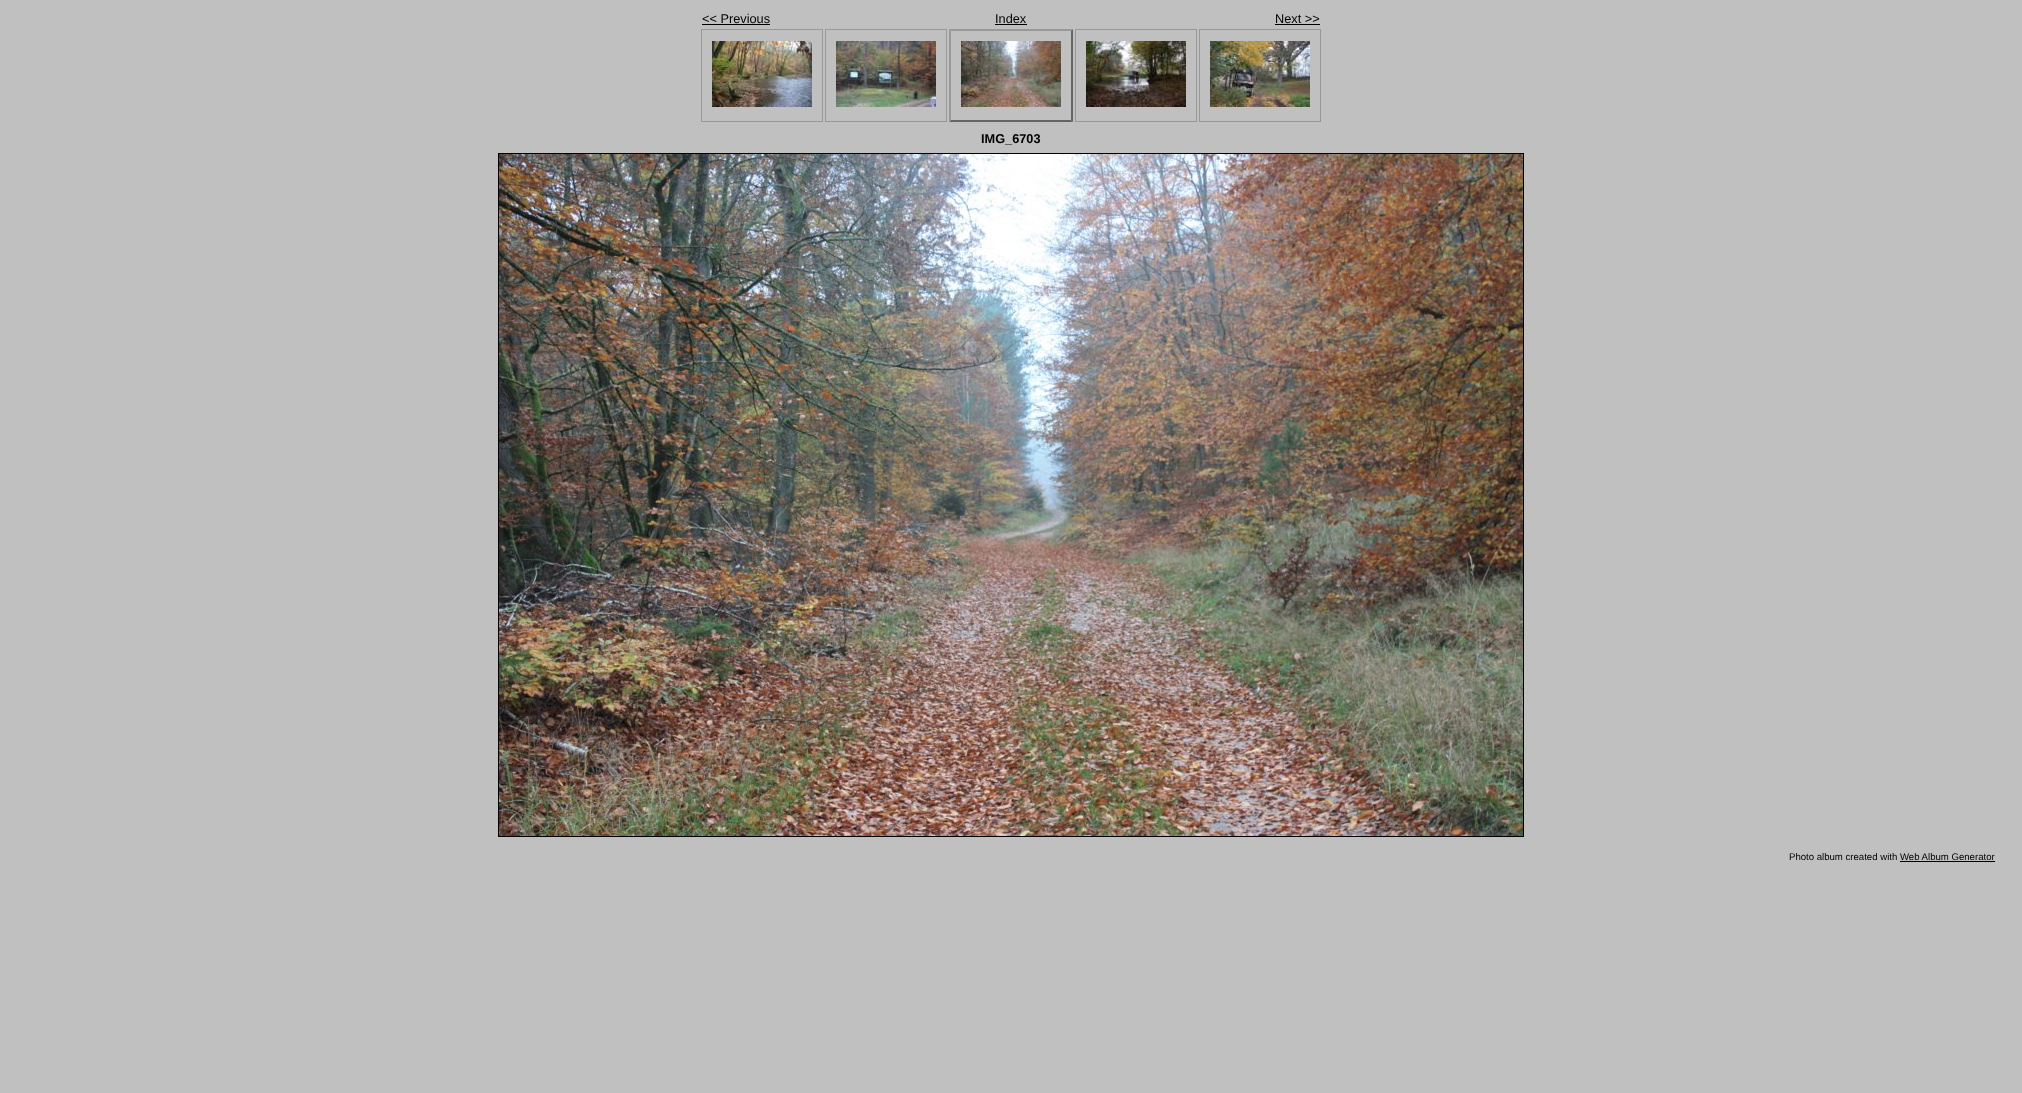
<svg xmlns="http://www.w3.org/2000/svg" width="2022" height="1093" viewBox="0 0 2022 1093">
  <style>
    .t1 { font: 12.75px Liberation Sans; fill: #000; }
    .t2 { font: bold 12.75px Liberation Sans; fill: #000; }
    .t3 { font: 9.6px Liberation Sans; fill: #000; }
  </style>
  <rect width="100%" height="100%" fill="#c0c0c0"/>
  <text x="702" y="23" class="t1">&lt;&lt; Previous</text>
  <rect x="702" y="24" width="68" height="1" fill="#000"/>
  <text x="995" y="23" class="t1">Index</text>
  <rect x="995" y="24" width="32" height="1" fill="#000"/>
  <text x="1275" y="23" class="t1">Next &gt;&gt;</text>
  <rect x="1275" y="24" width="45" height="1" fill="#000"/>
  <rect x="701.5" y="29.5" width="121" height="92" fill="none" stroke="#989898"/>
  <image x="712" y="41" width="100" height="66" href="images/1.png"/>
  <rect x="825.5" y="29.5" width="121" height="92" fill="none" stroke="#989898"/>
  <image x="836" y="41" width="100" height="66" href="images/2.png"/>
  <path d="M949 29H1073L1071 31H951Z" fill="#989898"/>
  <path d="M1073 29V122L1071 120V31Z" fill="#656565"/>
  <path d="M1073 122H949L951 120H1071Z" fill="#656565"/>
  <path d="M949 122V29L951 31V120Z" fill="#989898"/>
  <image x="961" y="41" width="100" height="66" href="images/3.png"/>
  <rect x="1075.5" y="29.5" width="121" height="92" fill="none" stroke="#989898"/>
  <image x="1086" y="41" width="100" height="66" href="images/4.png"/>
  <rect x="1199.5" y="29.5" width="121" height="92" fill="none" stroke="#989898"/>
  <image x="1210" y="41" width="100" height="66" href="images/5.png"/>
  <text x="981" y="143" class="t2">IMG_6703</text>
  <rect x="498.5" y="153.5" width="1025" height="683" fill="none" stroke="#000"/>
  <image x="499" y="154" width="1024" height="682" href="images/6.png"/>
  <text x="1789" y="860" class="t3">Photo album created with Web Album Generator</text>
  <rect x="1900" y="861" width="95" height="1" fill="#000"/>
</svg>
